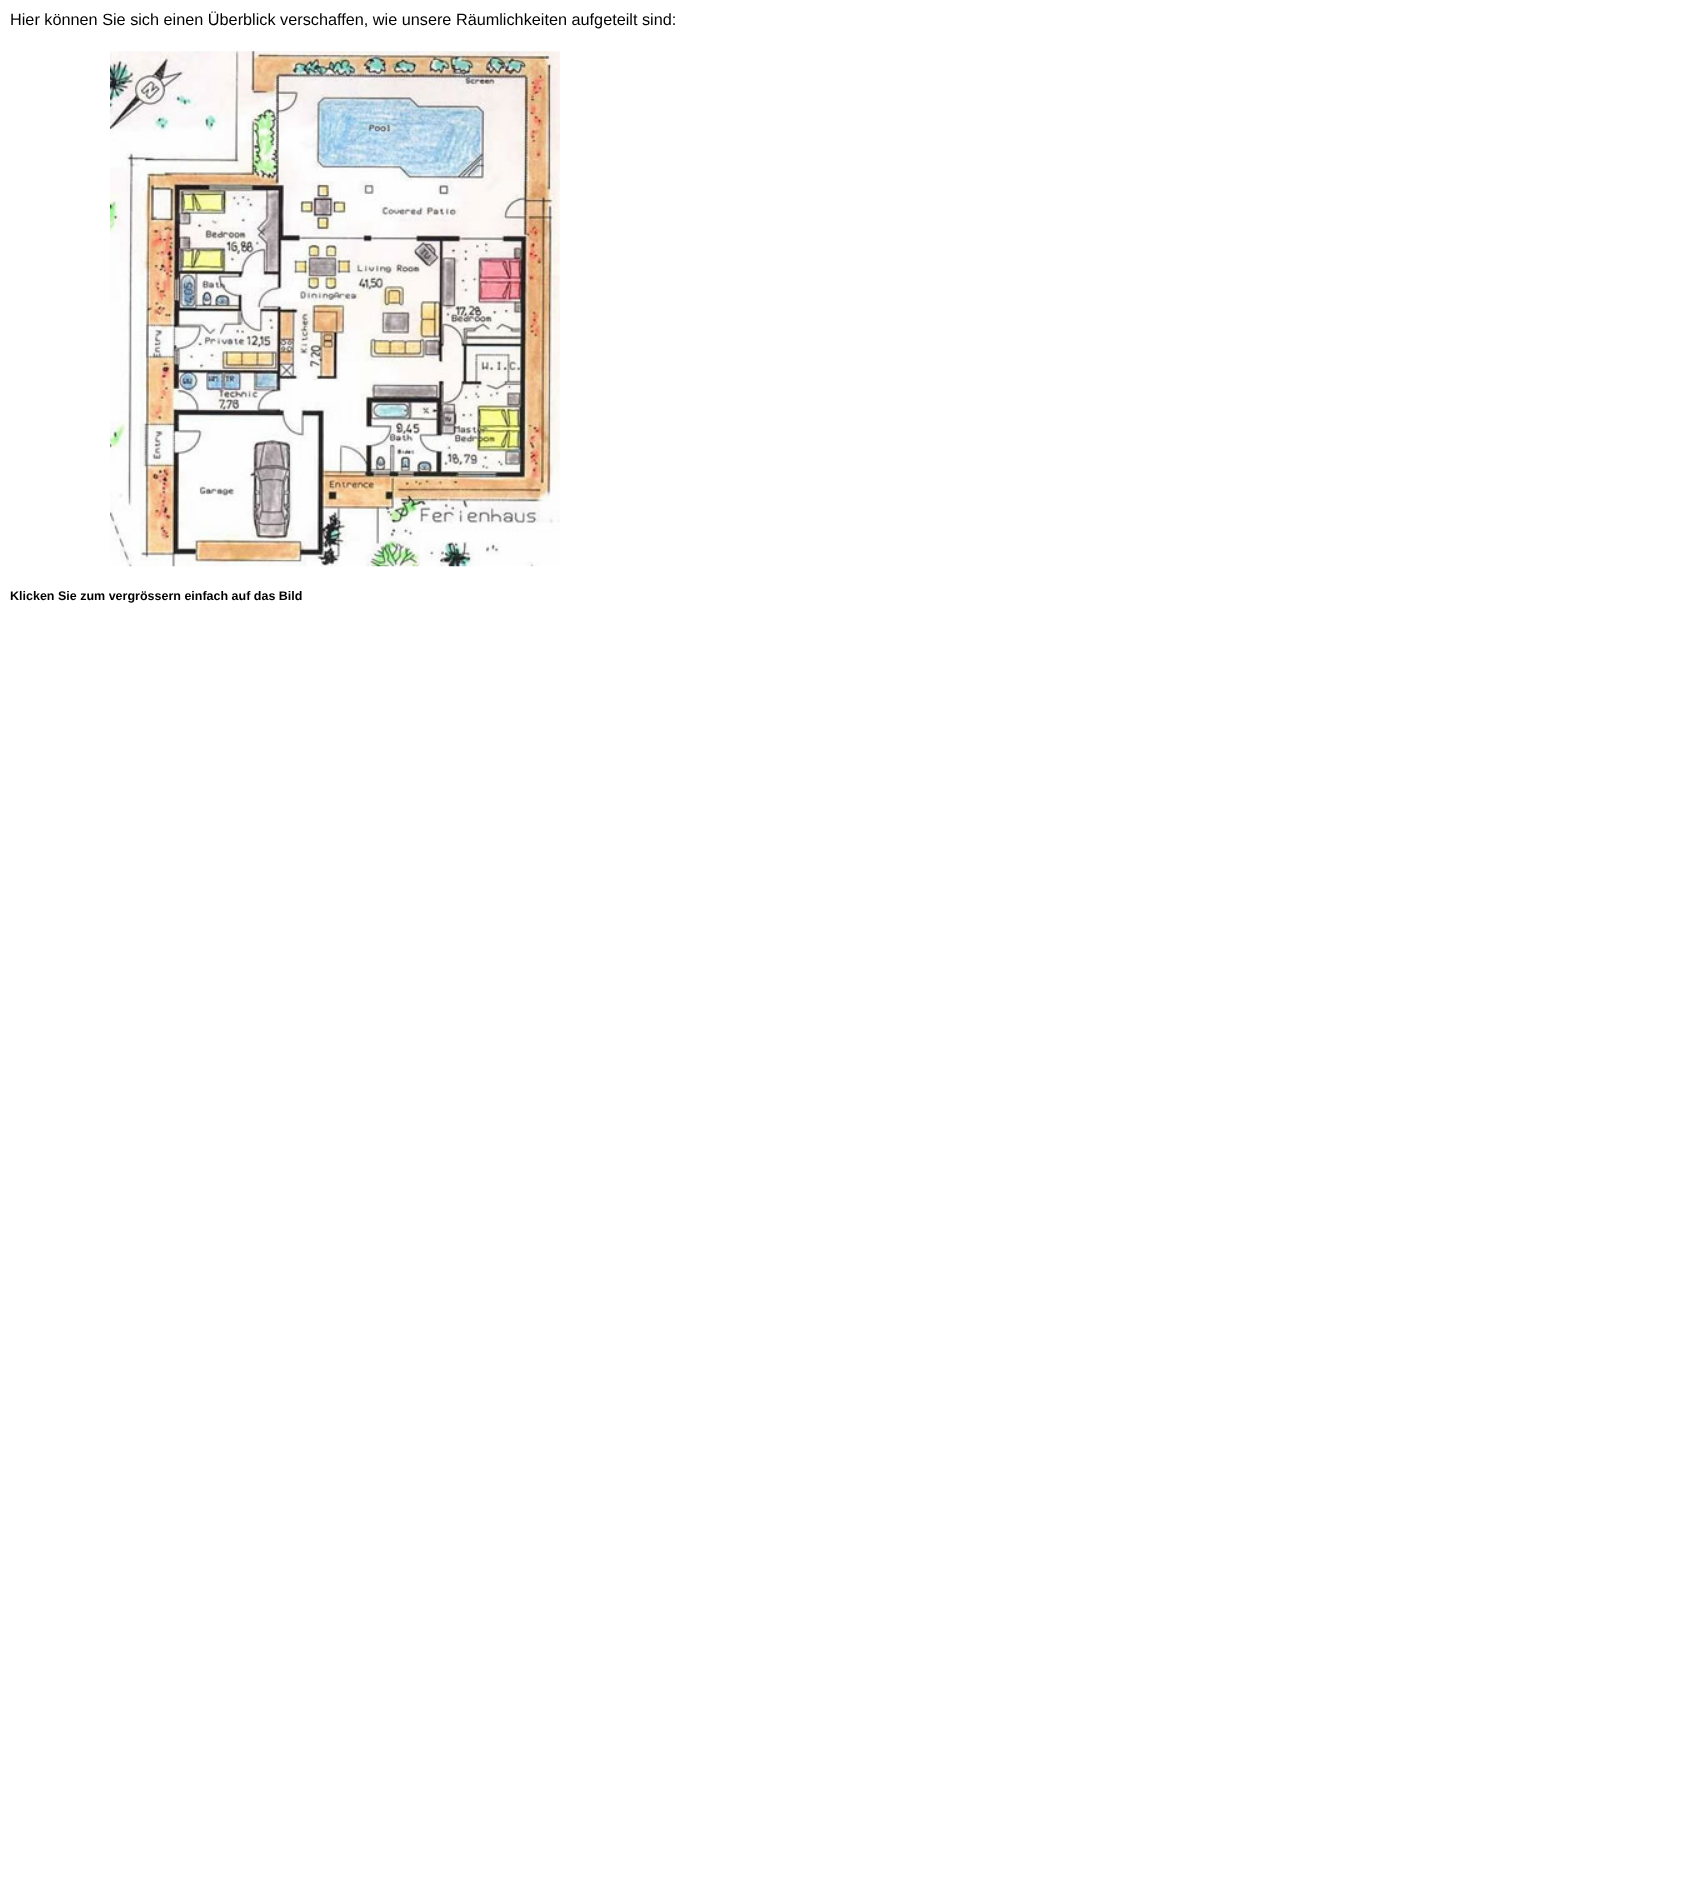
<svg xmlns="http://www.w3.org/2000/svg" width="1706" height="1881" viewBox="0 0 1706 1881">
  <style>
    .t1 { font: 16.25px Liberation Sans; fill: #000; }
    .t2 { font: bold 12.5px Liberation Sans; fill: #000; }
  </style>
  <rect width="100%" height="100%" fill="#fff"/>
  <text x="10" y="25" class="t1">Hier können Sie sich einen Überblick verschaffen, wie unsere Räumlichkeiten aufgeteilt sind:</text>
  <image x="110" y="51" width="450" height="516" href="images/1.png"/>
  <text x="10" y="600" class="t2">Klicken Sie zum vergrössern einfach auf das Bild</text>
</svg>
